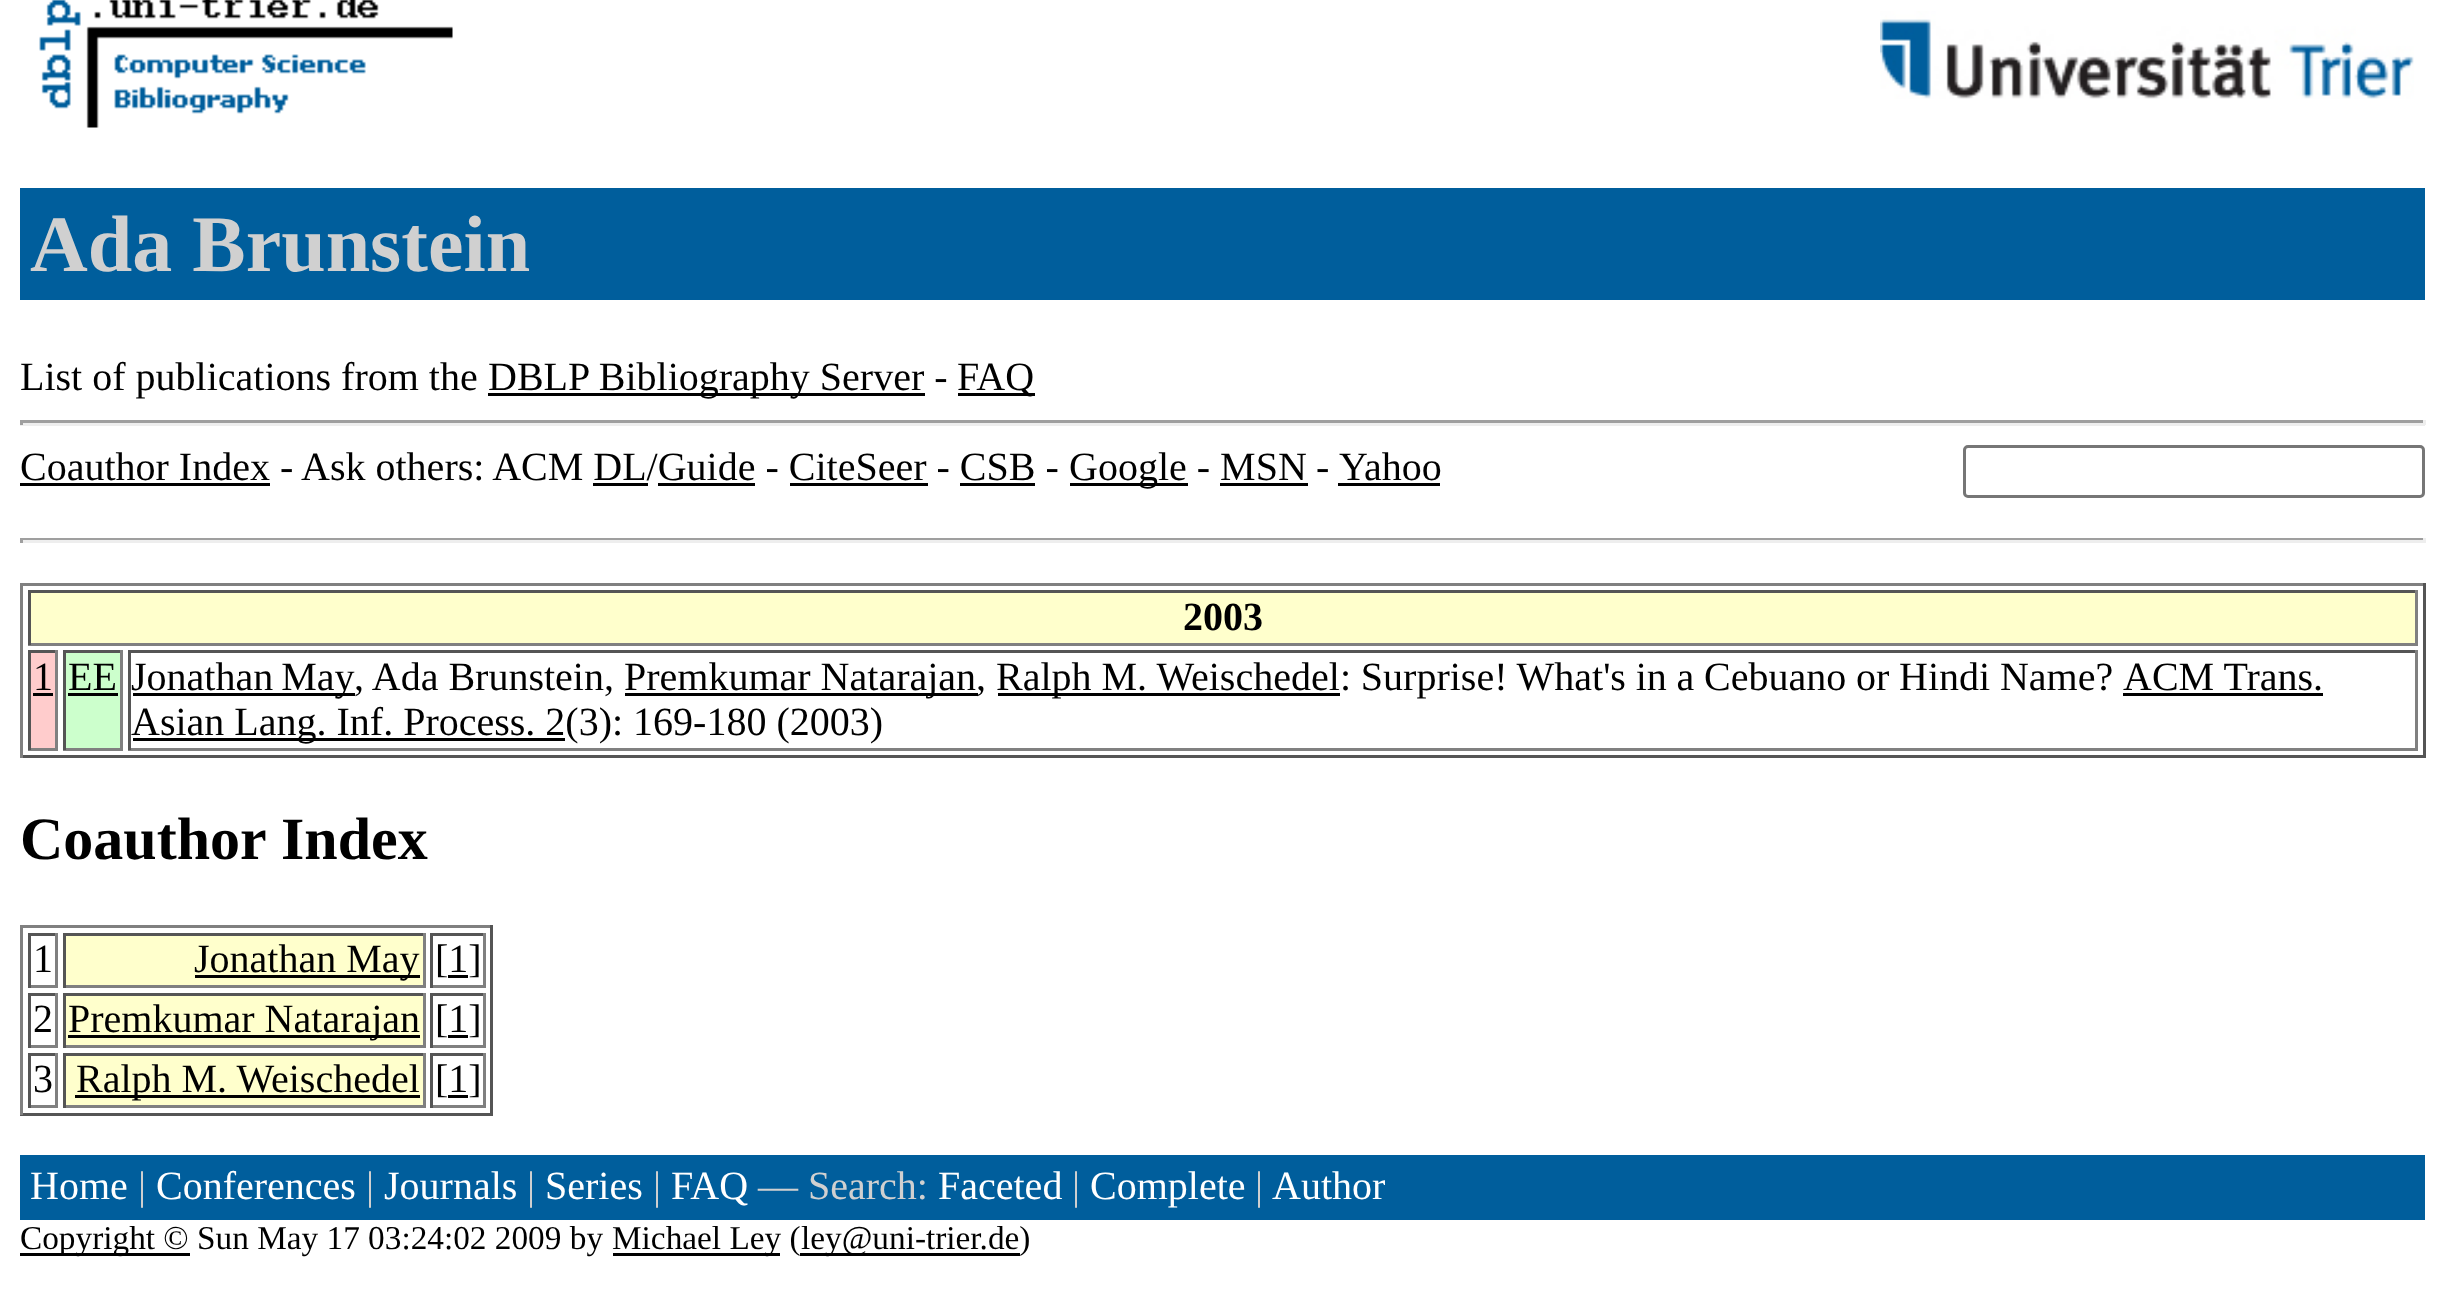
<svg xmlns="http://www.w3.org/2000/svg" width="2443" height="1299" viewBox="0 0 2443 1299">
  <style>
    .t1 { font: bold 80px Liberation Serif; fill: #d0d0d0; }
    .t2 { font: 40px Liberation Serif; fill: #000; }
    .t3 { font: bold 40px Liberation Serif; fill: #000; }
    .t4 { font: bold 60px Liberation Serif; fill: #000; }
    .t5 { font: 40px Liberation Serif; fill: #fff; }
    .t6 { font: 40px Liberation Serif; fill: #d0d0d0; }
    .t7 { font: 33.3px Liberation Serif; fill: #000; }
  </style>
  <rect width="100%" height="100%" fill="#fff"/>
  <image x="39" y="0" width="414" height="128" href="images/1.png"/>
  <image x="1880" y="11" width="534" height="88" href="images/2.png"/>
  <rect x="20" y="188" width="2405" height="112" fill="#005e9c"/>
  <text x="30" y="271" class="t1">Ada Brunstein</text>
  <text x="20" y="390" class="t2">List of publications from the</text>
  <rect x="488" y="393" width="437" height="3" fill="#000"/>
  <text x="488" y="390" class="t2">DBLP Bibliography Server -</text>
  <rect x="958" y="393" width="77" height="3" fill="#000"/>
  <text x="957" y="390" class="t2">FAQ</text>
  <rect x="20" y="420" width="2405" height="3" fill="#9f9f9f"/>
  <rect x="2423" y="420" width="3" height="5" fill="#eee"/>
  <rect x="20" y="423" width="2405" height="3" fill="#eee"/>
  <rect x="20" y="420" width="3" height="5" fill="#9f9f9f"/>
  <text x="20" y="480" class="t2">Coauthor Index - Ask others: ACM DL/Guide - CiteSeer - CSB -</text>
  <rect x="20" y="483" width="250" height="3" fill="#000"/>
  <rect x="1070" y="483" width="118" height="3" fill="#000"/>
  <text x="1069" y="480" class="t2">Google - MSN</text>
  <text x="1316" y="480" class="t2">-</text>
  <text x="1339" y="480" class="t2">Yahoo</text>
  <rect x="1338" y="483" width="102" height="3" fill="#000"/>
  <rect x="1964.5" y="446.5" width="459" height="50" rx="3.5" fill="none" stroke="#767676" stroke-width="3"/>
  <rect x="593" y="483" width="55" height="3" fill="#000"/>
  <rect x="658" y="483" width="97" height="3" fill="#000"/>
  <rect x="790" y="483" width="138" height="3" fill="#000"/>
  <rect x="960" y="483" width="75" height="3" fill="#000"/>
  <rect x="1220" y="483" width="88" height="3" fill="#000"/>
  <rect x="20" y="538" width="2405" height="2" fill="#9f9f9f"/>
  <rect x="2423" y="538" width="3" height="5" fill="#eee"/>
  <rect x="20" y="540" width="2405" height="3" fill="#eee"/>
  <rect x="20" y="538" width="3" height="5" fill="#9f9f9f"/>
  <rect x="20" y="583" width="2405" height="3" fill="#808080"/>
  <rect x="2423" y="583" width="3" height="175" fill="#555"/>
  <rect x="20" y="755" width="2405" height="3" fill="#555"/>
  <rect x="20" y="583" width="3" height="175" fill="#808080"/>
  <rect x="31" y="593" width="2384" height="50" fill="#ffc"/>
  <rect x="28" y="590" width="2390" height="3" fill="#555"/>
  <rect x="2415" y="590" width="3" height="55" fill="#808080"/>
  <rect x="28" y="643" width="2390" height="3" fill="#808080"/>
  <rect x="28" y="590" width="3" height="55" fill="#555"/>
  <text x="1183" y="630" class="t3">2003</text>
  <rect x="31" y="653" width="24" height="95" fill="#fcc"/>
  <rect x="28" y="650" width="30" height="3" fill="#555"/>
  <rect x="55" y="650" width="3" height="100" fill="#808080"/>
  <rect x="28" y="748" width="30" height="3" fill="#808080"/>
  <rect x="28" y="650" width="3" height="100" fill="#555"/>
  <text x="33" y="690" class="t2">1</text>
  <rect x="33" y="693" width="20" height="3" fill="#000"/>
  <rect x="66" y="653" width="54" height="95" fill="#cfc"/>
  <rect x="63" y="650" width="60" height="3" fill="#555"/>
  <rect x="120" y="650" width="3" height="100" fill="#808080"/>
  <rect x="63" y="748" width="60" height="3" fill="#808080"/>
  <rect x="63" y="650" width="3" height="100" fill="#555"/>
  <text x="68" y="690" class="t2">EE</text>
  <rect x="68" y="693" width="50" height="3" fill="#000"/>
  <rect x="128" y="650" width="2290" height="3" fill="#555"/>
  <rect x="2415" y="650" width="3" height="100" fill="#808080"/>
  <rect x="128" y="748" width="2290" height="3" fill="#808080"/>
  <rect x="128" y="650" width="3" height="100" fill="#555"/>
  <rect x="133" y="693" width="222" height="3" fill="#000"/>
  <text x="131" y="690" word-spacing="-2" class="t2">Jonathan May</text>
  <text x="354" y="690" class="t2">, Ada Brunstein,</text>
  <rect x="625" y="693" width="353" height="3" fill="#000"/>
  <text x="624" y="690" class="t2">Premkumar Natarajan,</text>
  <rect x="998" y="693" width="342" height="3" fill="#000"/>
  <text x="996" y="690" class="t2">Ralph M. Weischedel</text>
  <text x="1340" y="690" word-spacing="-0.25" class="t2">: Surprise! What's in a Cebuano or Hindi Name?</text>
  <text x="2123" y="690" class="t2">ACM Trans.</text>
  <rect x="2123" y="693" width="200" height="3" fill="#000"/>
  <rect x="133" y="738" width="432" height="3" fill="#000"/>
  <text x="131" y="735" class="t2">Asian Lang. Inf. Process. 2(3): 169-180 (2003)</text>
  <text x="20" y="859" class="t4">Coauthor</text>
  <text x="281" y="859" class="t4">Index</text>
  <rect x="20" y="925" width="473" height="3" fill="#808080"/>
  <rect x="490" y="925" width="3" height="190" fill="#555"/>
  <rect x="20" y="1113" width="473" height="3" fill="#555"/>
  <rect x="20" y="925" width="3" height="190" fill="#808080"/>
  <rect x="28" y="933" width="30" height="3" fill="#555"/>
  <rect x="55" y="933" width="3" height="55" fill="#808080"/>
  <rect x="28" y="985" width="30" height="3" fill="#808080"/>
  <rect x="28" y="933" width="3" height="55" fill="#555"/>
  <text x="33" y="972" class="t2">1</text>
  <rect x="66" y="936" width="357" height="49" fill="#ffc"/>
  <rect x="63" y="933" width="362" height="3" fill="#555"/>
  <rect x="423" y="933" width="3" height="55" fill="#808080"/>
  <rect x="63" y="985" width="362" height="3" fill="#808080"/>
  <rect x="63" y="933" width="3" height="55" fill="#555"/>
  <rect x="195" y="975" width="225" height="3" fill="#000"/>
  <text x="194" y="972" class="t2">Jonathan May</text>
  <rect x="430" y="933" width="55" height="3" fill="#555"/>
  <rect x="483" y="933" width="3" height="55" fill="#808080"/>
  <rect x="430" y="985" width="55" height="3" fill="#808080"/>
  <rect x="430" y="933" width="3" height="55" fill="#555"/>
  <text x="435" y="972" class="t2">[1]</text>
  <rect x="448" y="975" width="20" height="3" fill="#000"/>
  <rect x="28" y="993" width="30" height="3" fill="#555"/>
  <rect x="55" y="993" width="3" height="55" fill="#808080"/>
  <rect x="28" y="1045" width="30" height="3" fill="#808080"/>
  <rect x="28" y="993" width="3" height="55" fill="#555"/>
  <text x="33" y="1032" class="t2">2</text>
  <rect x="66" y="996" width="357" height="49" fill="#ffc"/>
  <rect x="63" y="993" width="362" height="3" fill="#555"/>
  <rect x="423" y="993" width="3" height="55" fill="#808080"/>
  <rect x="63" y="1045" width="362" height="3" fill="#808080"/>
  <rect x="63" y="993" width="3" height="55" fill="#555"/>
  <rect x="68" y="1035" width="352" height="3" fill="#000"/>
  <text x="68" y="1032" class="t2">Premkumar Natarajan</text>
  <rect x="430" y="993" width="55" height="3" fill="#555"/>
  <rect x="483" y="993" width="3" height="55" fill="#808080"/>
  <rect x="430" y="1045" width="55" height="3" fill="#808080"/>
  <rect x="430" y="993" width="3" height="55" fill="#555"/>
  <text x="435" y="1032" class="t2">[1]</text>
  <rect x="448" y="1035" width="20" height="3" fill="#000"/>
  <rect x="28" y="1053" width="30" height="3" fill="#555"/>
  <rect x="55" y="1053" width="3" height="55" fill="#808080"/>
  <rect x="28" y="1105" width="30" height="3" fill="#808080"/>
  <rect x="28" y="1053" width="3" height="55" fill="#555"/>
  <text x="33" y="1092" class="t2">3</text>
  <rect x="66" y="1056" width="357" height="49" fill="#ffc"/>
  <rect x="63" y="1053" width="362" height="3" fill="#555"/>
  <rect x="423" y="1053" width="3" height="55" fill="#808080"/>
  <rect x="63" y="1105" width="362" height="3" fill="#808080"/>
  <rect x="63" y="1053" width="3" height="55" fill="#555"/>
  <rect x="75" y="1095" width="345" height="3" fill="#000"/>
  <text x="76" y="1092" class="t2">Ralph M. Weischedel</text>
  <rect x="430" y="1053" width="55" height="3" fill="#555"/>
  <rect x="483" y="1053" width="3" height="55" fill="#808080"/>
  <rect x="430" y="1105" width="55" height="3" fill="#808080"/>
  <rect x="430" y="1053" width="3" height="55" fill="#555"/>
  <text x="435" y="1092" class="t2">[1]</text>
  <rect x="448" y="1095" width="20" height="3" fill="#000"/>
  <rect x="20" y="1155" width="2405" height="65" fill="#005e9c"/>
  <text x="30" y="1199" class="t5">Home</text>
  <text x="138" y="1199" class="t6">|</text>
  <text x="156" y="1199" class="t5">Conferences</text>
  <text x="366" y="1199" class="t6">|</text>
  <text x="384" y="1199" class="t5">Journals</text>
  <text x="527" y="1199" class="t6">|</text>
  <text x="545" y="1199" class="t5">Series</text>
  <text x="653" y="1199" class="t6">|</text>
  <text x="671" y="1199" class="t5">FAQ</text>
  <text x="758" y="1199" class="t6">— Search:</text>
  <text x="938" y="1199" class="t5">Faceted</text>
  <text x="1072" y="1199" class="t6">|</text>
  <text x="1090" y="1199" class="t5">Complete</text>
  <text x="1255" y="1199" class="t6">|</text>
  <text x="1272" y="1199" class="t5">Author</text>
  <rect x="20" y="1253" width="170" height="3" fill="#000"/>
  <text x="20" y="1249" class="t7">Copyright © Sun May 17 03:24:02 2009 by</text>
  <rect x="613" y="1253" width="167" height="3" fill="#000"/>
  <text x="612" y="1249" class="t7">Michael Ley (</text>
  <rect x="800" y="1253" width="220" height="3" fill="#000"/>
  <text x="801" y="1249" class="t7">ley@uni-trier.de)</text>
</svg>
